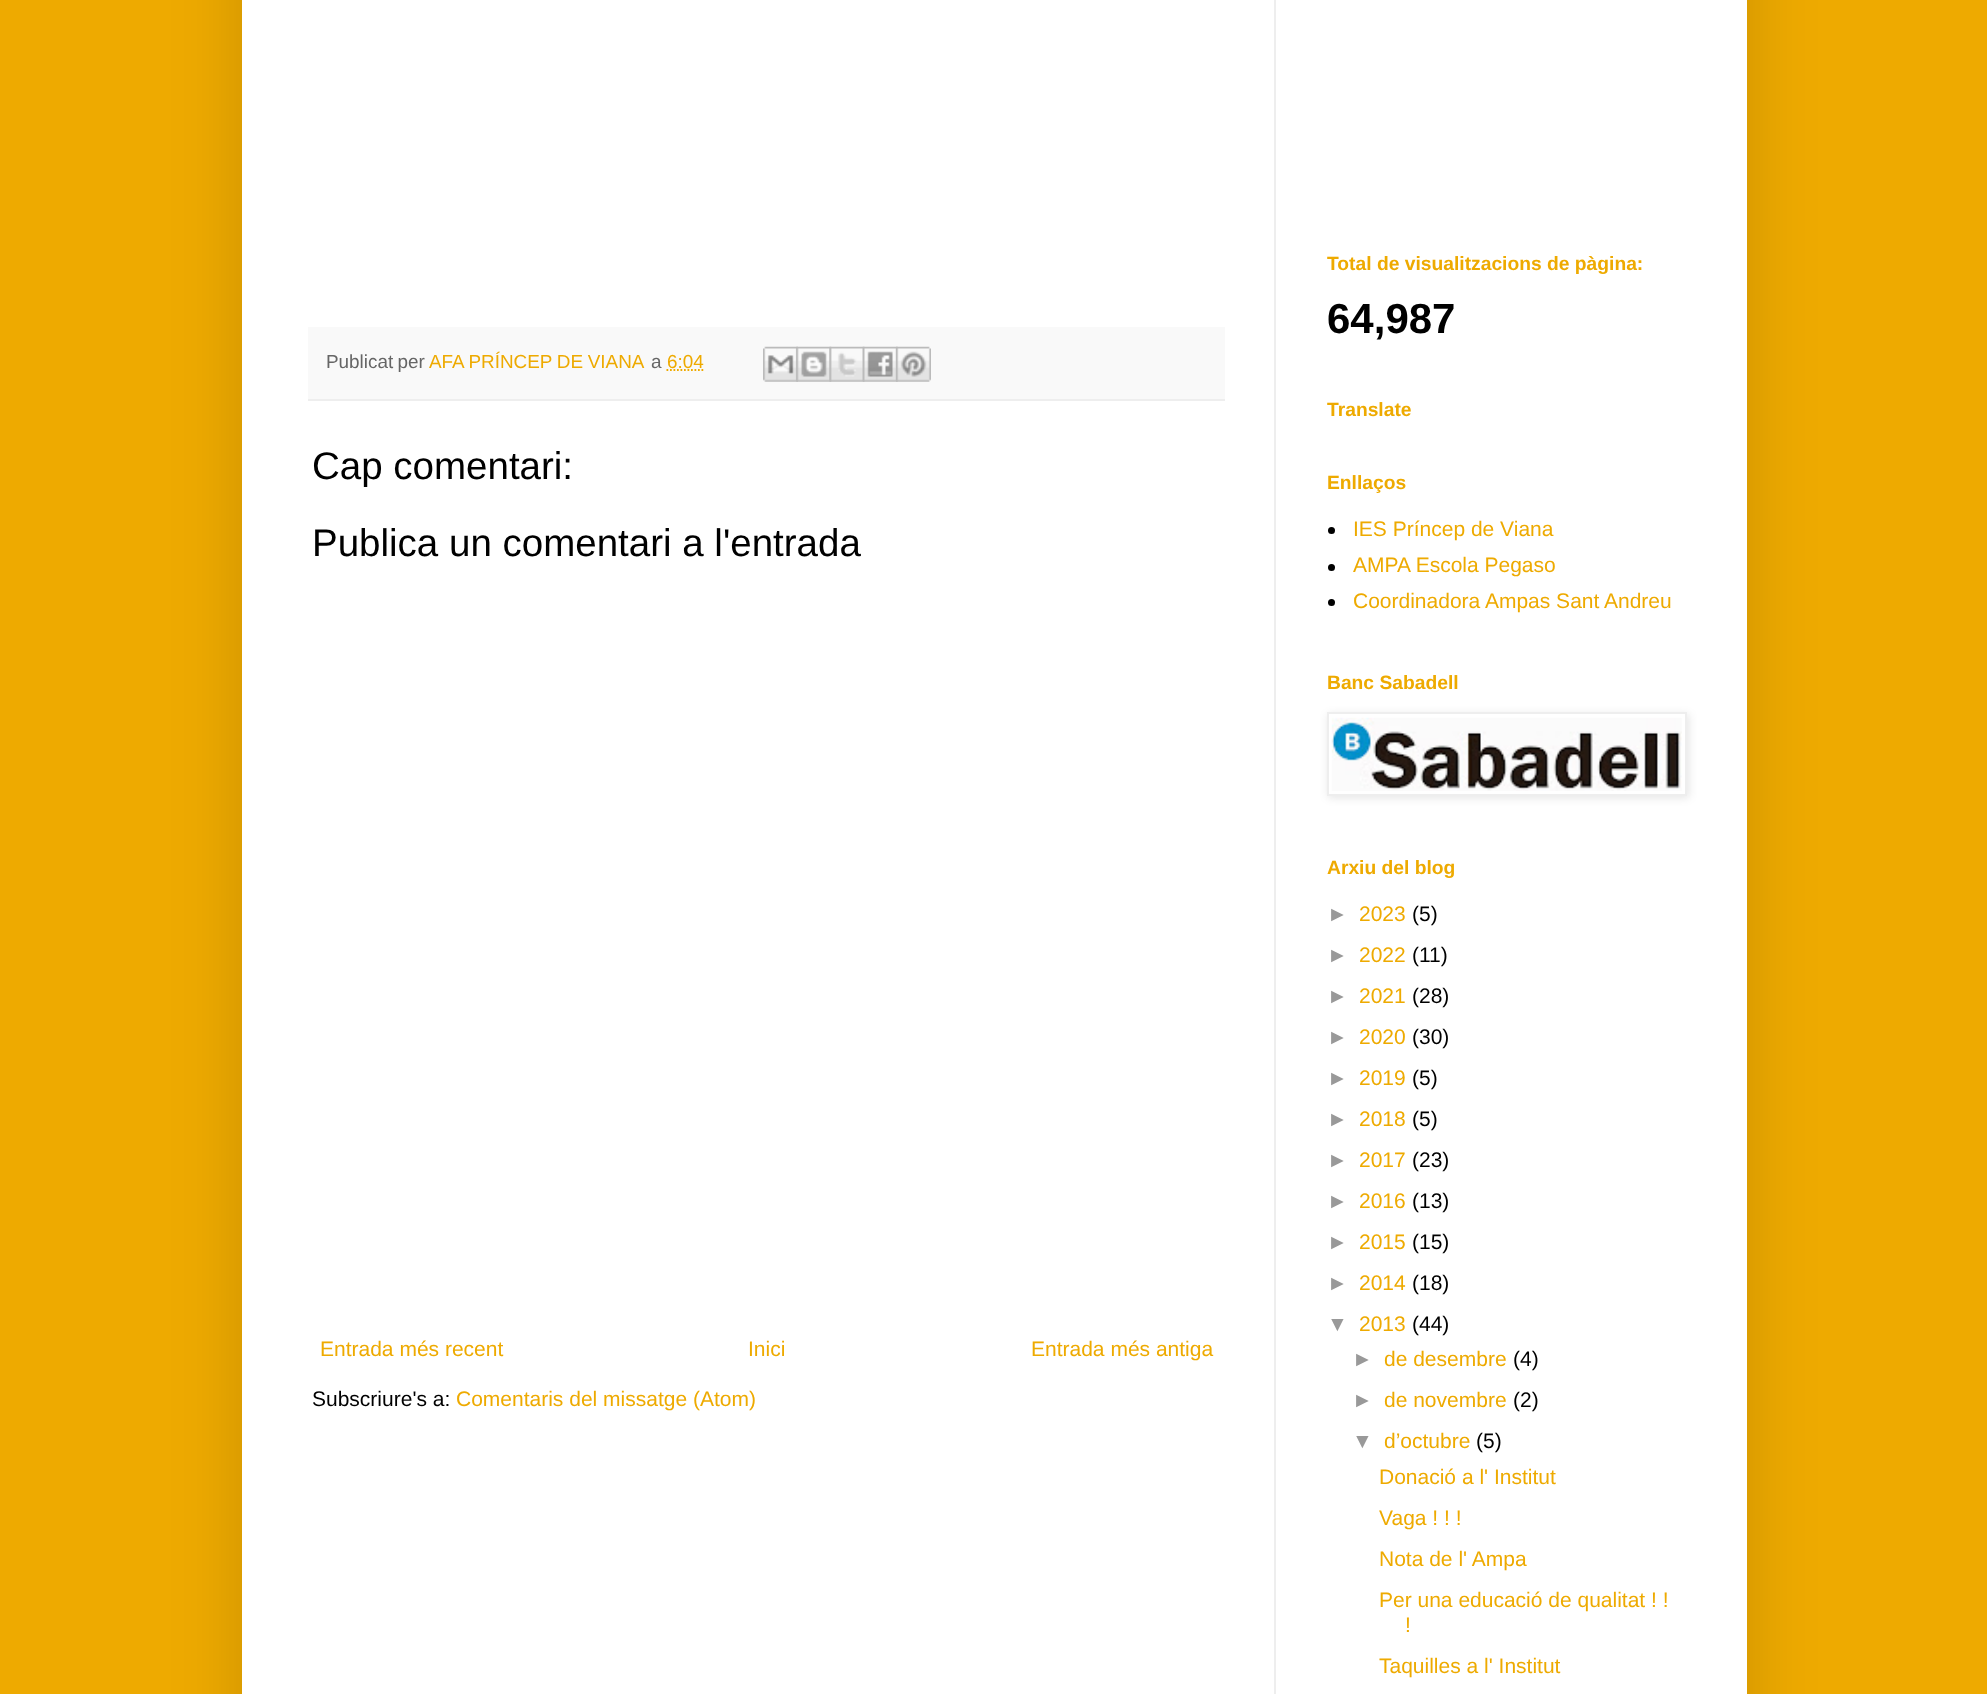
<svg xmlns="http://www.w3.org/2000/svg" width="1987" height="1694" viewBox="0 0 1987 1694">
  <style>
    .t1 { font: 18.9px Liberation Sans; fill: #666; }
    .t2 { font: 18.9px Liberation Sans; fill: #ea0; }
    .t3 { font: 38.5px Liberation Sans; fill: #000; }
    .t4 { font: 21px Liberation Sans; fill: #ea0; }
    .t5 { font: 21px Liberation Sans; fill: #000; }
    .t6 { font: bold 19.25px Liberation Sans; fill: #ea0; }
    .t7 { font: bold 42px Liberation Sans; fill: #000; }
    .t8 { font: 21px Liberation Sans; fill: #999; }
  </style>
  <rect width="100%" height="100%" fill="#ea0"/>
  <rect x="242" y="-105" width="1505" height="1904" fill="#00000026" filter="blur(35px)"/>
  <rect x="242" y="0" width="1505" height="1694" fill="#fff"/>
  <rect x="1274" y="0" width="2" height="1694" fill="#eee"/>
  <rect x="308" y="327" width="917" height="72" fill="#f9f9f9"/>
  <rect x="308" y="399" width="917" height="2" fill="#eee"/>
  <text x="326" y="368" word-spacing="-1" class="t1">Publicat per</text>
  <text x="429" y="368" word-spacing="-0.5" class="t2">AFA PRÍNCEP DE VIANA</text>
  <text x="651" y="368" class="t1">a</text>
  <text x="667" y="368" class="t2">6:04</text>
  <path d="M666.5 370H703.5" fill="none" stroke="#ea0" stroke-width="1.8" stroke-dasharray="1.75 1.75"/>
  <image x="763" y="346" width="35" height="36" href="images/1.png"/>
  <image x="796" y="346" width="36" height="36" href="images/2.png"/>
  <image x="829" y="346" width="36" height="36" href="images/3.png"/>
  <image x="862" y="346" width="36" height="36" href="images/4.png"/>
  <image x="896" y="346" width="35" height="36" href="images/5.png"/>
  <text x="312" y="479" class="t3">Cap comentari:</text>
  <text x="312" y="556" class="t3">Publica un comentari a l'entrada</text>
  <text x="320" y="1356" class="t4">Entrada més recent</text>
  <text x="748" y="1356" class="t4">Inici</text>
  <text x="1031" y="1356" class="t4">Entrada més antiga</text>
  <text x="312" y="1406" class="t5">Subscriure's a:</text>
  <text x="456" y="1406" class="t4">Comentaris del missatge (Atom)</text>
  <text x="1327" y="270" class="t6">Total de visualitzacions de pàgina:</text>
  <text x="1327" y="333" class="t7">64,987</text>
  <text x="1327" y="416" class="t6">Translate</text>
  <text x="1327" y="489" class="t6">Enllaços</text>
  <circle cx="1331.5" cy="530.5" r="3.5" fill="#000"/>
  <text x="1353" y="536" class="t4">IES Príncep de Viana</text>
  <circle cx="1331.5" cy="567.5" r="3.5" fill="#000"/>
  <text x="1353" y="572" class="t4">AMPA Escola Pegaso</text>
  <circle cx="1331.5" cy="602.5" r="3.5" fill="#000"/>
  <text x="1353" y="608" class="t4">Coordinadora Ampas Sant Andreu</text>
  <text x="1327" y="689" class="t6">Banc Sabadell</text>
  <rect x="1328" y="714" width="361" height="84" fill="#0000001a" filter="blur(4.5px)"/>
  <rect x="1328" y="713" width="358" height="82" fill="#fff" stroke="#eee" stroke-width="2"/>
  <image x="1331" y="717" width="351" height="74" href="images/6.png"/>
  <text x="1327" y="874" class="t6">Arxiu del blog</text>
  <text x="1327" y="921" class="t8">►</text>
  <text x="1359" y="921" class="t4">2023</text>
  <text x="1412" y="921" class="t5">(5)</text>
  <text x="1327" y="962" class="t8">►</text>
  <text x="1359" y="962" class="t4">2022</text>
  <text x="1412" y="962" class="t5">(11)</text>
  <text x="1327" y="1003" class="t8">►</text>
  <text x="1359" y="1003" class="t4">2021</text>
  <text x="1412" y="1003" class="t5">(28)</text>
  <text x="1327" y="1044" class="t8">►</text>
  <text x="1359" y="1044" class="t4">2020</text>
  <text x="1412" y="1044" class="t5">(30)</text>
  <text x="1327" y="1085" class="t8">►</text>
  <text x="1359" y="1085" class="t4">2019</text>
  <text x="1412" y="1085" class="t5">(5)</text>
  <text x="1327" y="1126" class="t8">►</text>
  <text x="1359" y="1126" class="t4">2018</text>
  <text x="1412" y="1126" class="t5">(5)</text>
  <text x="1327" y="1167" class="t8">►</text>
  <text x="1359" y="1167" class="t4">2017</text>
  <text x="1412" y="1167" class="t5">(23)</text>
  <text x="1327" y="1208" class="t8">►</text>
  <text x="1359" y="1208" class="t4">2016</text>
  <text x="1412" y="1208" class="t5">(13)</text>
  <text x="1327" y="1249" class="t8">►</text>
  <text x="1359" y="1249" class="t4">2015</text>
  <text x="1412" y="1249" class="t5">(15)</text>
  <text x="1327" y="1290" class="t8">►</text>
  <text x="1359" y="1290" class="t4">2014</text>
  <text x="1412" y="1290" class="t5">(18)</text>
  <text x="1327" y="1331" class="t8">▼</text>
  <text x="1359" y="1331" class="t4">2013</text>
  <text x="1412" y="1331" class="t5">(44)</text>
  <text x="1352" y="1366" class="t8">►</text>
  <text x="1384" y="1366" class="t4">de desembre</text>
  <text x="1513" y="1366" class="t5">(4)</text>
  <text x="1352" y="1407" class="t8">►</text>
  <text x="1384" y="1407" class="t4">de novembre</text>
  <text x="1513" y="1407" class="t5">(2)</text>
  <text x="1352" y="1448" class="t8">▼</text>
  <text x="1384" y="1448" class="t4">d’octubre</text>
  <text x="1476" y="1448" class="t5">(5)</text>
  <text x="1379" y="1484" class="t4">Donació a l' Institut</text>
  <text x="1379" y="1525" class="t4">Vaga ! ! !</text>
  <text x="1379" y="1566" class="t4">Nota de l' Ampa</text>
  <text x="1379" y="1607" class="t4">Per una educació de qualitat ! !</text>
  <text x="1405" y="1632" class="t4">!</text>
  <text x="1379" y="1673" class="t4">Taquilles a l' Institut</text>
</svg>
